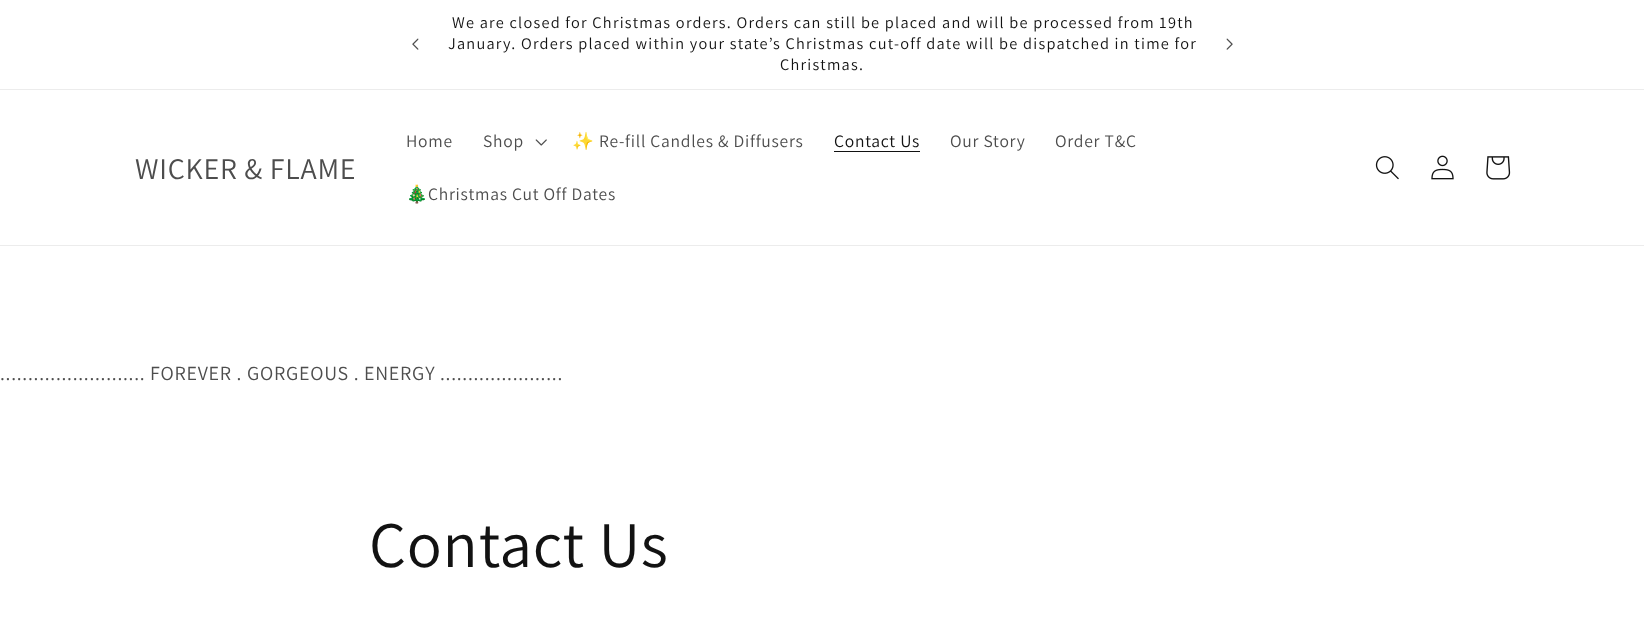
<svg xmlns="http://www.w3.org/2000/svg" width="1644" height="628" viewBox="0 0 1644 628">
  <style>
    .t1 { font: 16.25px Assistant; letter-spacing: 1.25px; fill: #121212; }
    .t2 { font: 30px Assistant; letter-spacing: 0.75px; fill: #4d4d4d; }
    .t3 { font: 17.5px Assistant; letter-spacing: 0.75px; fill: #4d4d4d; }
    .t4 { font: 17.5px Noto Color Emoji; letter-spacing: 0.75px; fill: #4d4d4d; }
    .t5 { font: 17.5px Assistant; letter-spacing: 0.75px; fill: #121212; }
    .t6 { font: 20px Assistant; letter-spacing: 0.75px; fill: #4d4d4d; }
    .t7 { font: 65px Assistant; letter-spacing: 0.75px; fill: #121212; }
  </style>
  <rect width="100%" height="100%" fill="#fff"/>
  <rect x="0" y="89" width="1644" height="1" fill="#ececec"/>
  <image x="412" y="38" width="7" height="12" href="images/1.png"/>
  <text x="452" y="28" class="t1">We are closed for Christmas orders. Orders can still be placed and will be processed from 19th</text>
  <text x="448" y="49" class="t1">January. Orders placed within your state’s Christmas cut-off date will be dispatched in time for</text>
  <text x="780" y="70" class="t1">Christmas.</text>
  <image x="1226" y="38" width="7" height="12" href="images/2.png"/>
  <rect x="0" y="245" width="1644" height="1" fill="#ececec"/>
  <text x="135" y="179" class="t2">WICKER &amp; FLAME</text>
  <text x="406" y="147" class="t3">Home</text>
  <text x="483" y="147" class="t3">Shop</text>
  <image x="535" y="139" width="12" height="7" href="images/3.png"/>
  <text x="572" y="147" class="t4">✨</text>
  <text x="599" y="147" class="t3">Re-fill Candles &amp; Diffusers</text>
  <text x="834" y="147" class="t5">Contact Us</text>
  <rect x="834" y="151" width="86" height="1" fill="#121212"/>
  <text x="950" y="147" class="t3">Our Story</text>
  <text x="1055" y="147" class="t3">Order T&amp;C</text>
  <text x="406" y="200" class="t4">🎄</text>
  <text x="428" y="200" class="t3">Christmas Cut Off Dates</text>
  <image x="1375" y="156" width="24" height="24" href="images/4.png"/>
  <image x="1431" y="155" width="23" height="25" href="images/5.png"/>
  <image x="1486" y="156" width="25" height="24" href="images/6.png"/>
  <text x="0" y="380" class="t6">.......................... FOREVER . GORGEOUS . ENERGY ......................</text>
  <text x="369" y="567" class="t7">Contact Us</text>
</svg>
